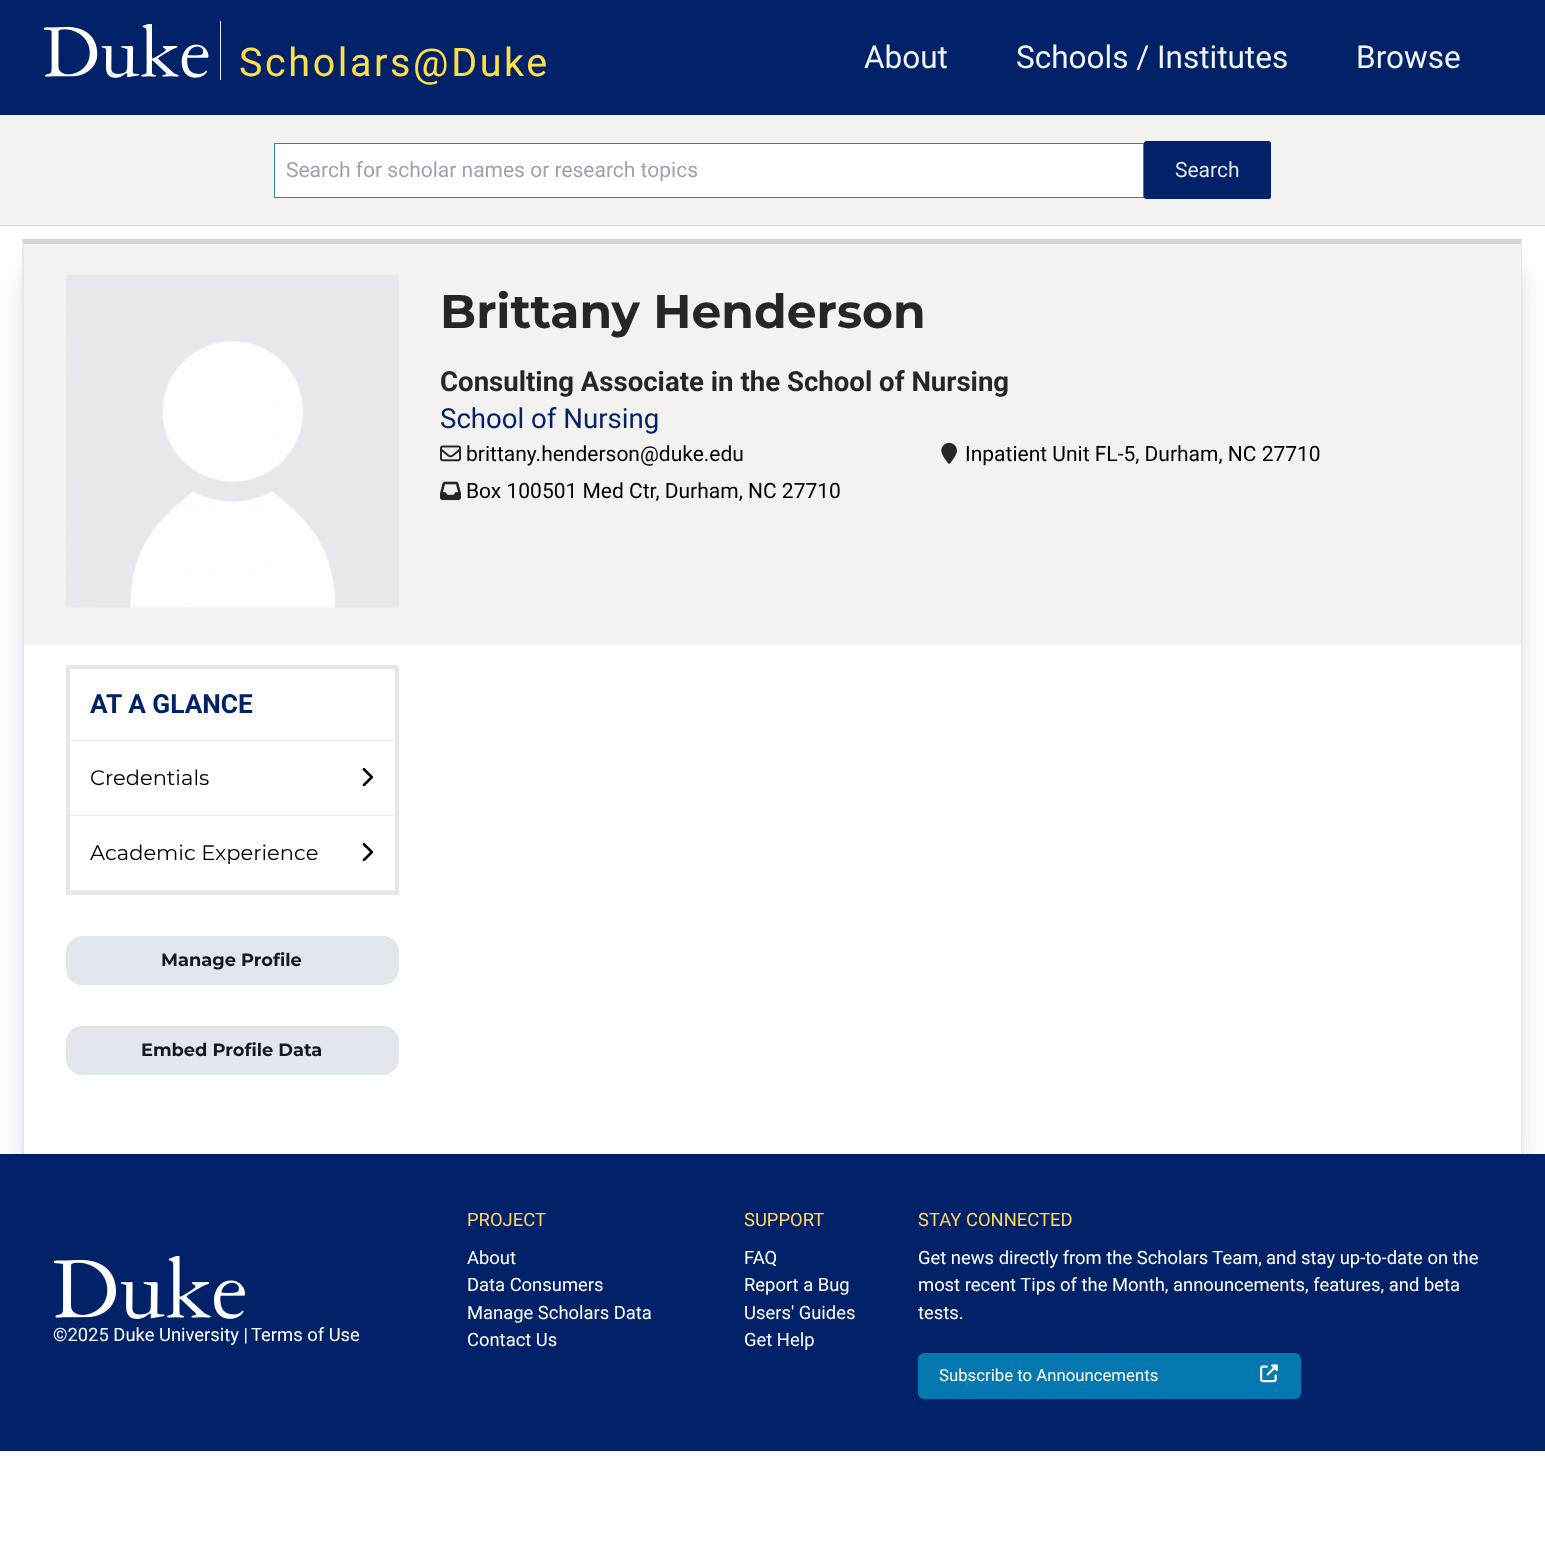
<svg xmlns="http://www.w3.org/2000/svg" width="1545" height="1558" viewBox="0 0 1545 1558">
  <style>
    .t1 { font: 39.5px Roboto; letter-spacing: 2.6px; fill: #fde047; }
    .t2 { font: 31.5px Roboto; fill: #f3f4f6; }
    .t3 { font: 21px Roboto; fill: #9ca3af; }
    .t4 { font: 21px Roboto; fill: #e5e5e5; }
    .t5 { font: bold 47.25px Montserrat; fill: #262626; }
    .t6 { font: bold 27.6px Roboto; fill: #262626; }
    .t7 { font: 27.6px Roboto; fill: #012169; }
    .t8 { font: 21px Roboto; fill: #000; }
    .t9 { font: bold 26.25px Roboto; fill: #012169; }
    .t10 { font: 21px Montserrat; fill: #000; }
    .t11 { font: bold 17.8px Montserrat; fill: #111827; }
    .t12 { font: 18.4px Roboto; fill: #fff; }
    .t13 { font: 18.4px Roboto; fill: #ffd960; }
    .t14 { font: 16.75px Roboto; fill: #fff; }
  </style>
  <rect width="100%" height="100%" fill="#fff"/>
  <rect x="0" y="0" width="1545" height="115" fill="#012169"/>
  <image x="43" y="24" width="166" height="54" href="images/1.png"/>
  <rect x="220" y="21" width="1" height="59" fill="#e5e7eb"/>
  <text x="239" y="76" class="t1">Scholars@Duke</text>
  <text x="864" y="68" class="t2">About</text>
  <text x="1016" y="68" class="t2">Schools / Institutes</text>
  <text x="1356" y="68" class="t2">Browse</text>
  <rect x="0" y="225" width="1545" height="1" fill="#d1d5db"/>
  <rect x="0" y="115" width="1545" height="110" fill="#f3f2f1"/>
  <rect x="274.5" y="143.5" width="869" height="54" fill="#fff" stroke="#3180af"/>
  <text x="286" y="177" class="t3">Search for scholar names or research topics</text>
  <rect x="1144" y="141" width="127" height="58" rx="2.5" fill="#012169"/>
  <text x="1175" y="177" class="t4">Search</text>
  <rect x="30" y="256" width="1485" height="900" fill="#cbd5e1" filter="blur(6px)"/>
  <rect x="29" y="270" width="1487" height="903" fill="#cbd5e1" filter="blur(15.5px)"/>
  <path d="M22 239H1522L1521 244H24Z" fill="#d1d5db"/>
  <path d="M1522 239V1154H1521V244Z" fill="#e5e7eb"/>
  <path d="M22 1154V239L24 244V1154Z" fill="#e5e7eb"/>
  <rect x="24" y="244" width="1497" height="401" fill="#f3f2f1"/>
  <image x="66" y="275" width="333" height="333" href="images/2.png"/>
  <text x="440" y="328" class="t5">Brittany Henderson</text>
  <text x="440" y="391" class="t6">Consulting Associate in the School of Nursing</text>
  <text x="440" y="428" class="t7">School of Nursing</text>
  <image x="440" y="445" width="21" height="17" href="images/3.png"/>
  <text x="466" y="461" class="t8">brittany.henderson@duke.edu</text>
  <image x="440" y="481" width="21" height="20" href="images/4.png"/>
  <text x="466" y="498" class="t8">Box 100501 Med Ctr, Durham, NC 27710</text>
  <image x="941" y="442" width="16" height="22" href="images/5.png"/>
  <text x="965" y="461" class="t8">Inpatient Unit FL-5, Durham, NC 27710</text>
  <rect x="24" y="645" width="1497" height="509" fill="#fff"/>
  <path d="M68 665C67 665 66 666 66 668V895H399V668C399 666 398 665 396 665ZM70 669V891H395V669Z" fill="#e5e7eb" fill-rule="evenodd"/>
  <rect x="70" y="740" width="325" height="1" fill="#ededed"/>
  <text x="90" y="713" class="t9">AT A GLANCE</text>
  <rect x="70" y="815" width="325" height="1" fill="#ededed"/>
  <text x="90" y="785" class="t10">Credentials</text>
  <image x="362" y="768" width="12" height="19" href="images/6.png"/>
  <rect x="70" y="890" width="325" height="1" fill="#ededed"/>
  <text x="90" y="860" class="t10">Academic Experience</text>
  <image x="362" y="843" width="12" height="19" href="images/6.png"/>
  <rect x="66" y="936" width="333" height="49" rx="16" fill="#e2e6ed"/>
  <text x="161" y="966" class="t11">Manage Profile</text>
  <rect x="66" y="1026" width="333" height="49" rx="16" fill="#e2e6ed"/>
  <text x="141" y="1056" class="t11">Embed Profile Data</text>
  <rect x="0" y="1154" width="1545" height="297" fill="#012169"/>
  <image x="54" y="1256" width="192" height="63" href="images/7.png"/>
  <text x="53" y="1341" class="t12">©2025 Duke University |</text>
  <text x="251" y="1341" class="t12">Terms of Use</text>
  <text x="467" y="1226" class="t13">PROJECT</text>
  <text x="467" y="1264" class="t12">About</text>
  <text x="467" y="1291" class="t12">Data Consumers</text>
  <text x="467" y="1319" class="t12">Manage Scholars Data</text>
  <text x="467" y="1346" class="t12">Contact Us</text>
  <text x="744" y="1226" class="t13">SUPPORT</text>
  <text x="744" y="1264" class="t12">FAQ</text>
  <text x="744" y="1291" class="t12">Report a Bug</text>
  <text x="744" y="1319" class="t12">Users' Guides</text>
  <text x="744" y="1346" class="t12">Get Help</text>
  <text x="918" y="1226" class="t13">STAY CONNECTED</text>
  <text x="918" y="1264" class="t12">Get news directly from the Scholars Team,</text>
  <text x="1266" y="1264" class="t12">and stay up-to-date on the</text>
  <text x="918" y="1291" class="t12">most recent Tips of the Month, announcements, features, and beta</text>
  <text x="918" y="1319" class="t12">tests.</text>
  <rect x="918" y="1353" width="383" height="46" rx="6" fill="#0577b1"/>
  <text x="939" y="1381" class="t14">Subscribe to Announcements</text>
  <image x="1260" y="1364" width="18" height="19" href="images/8.png"/>
</svg>
